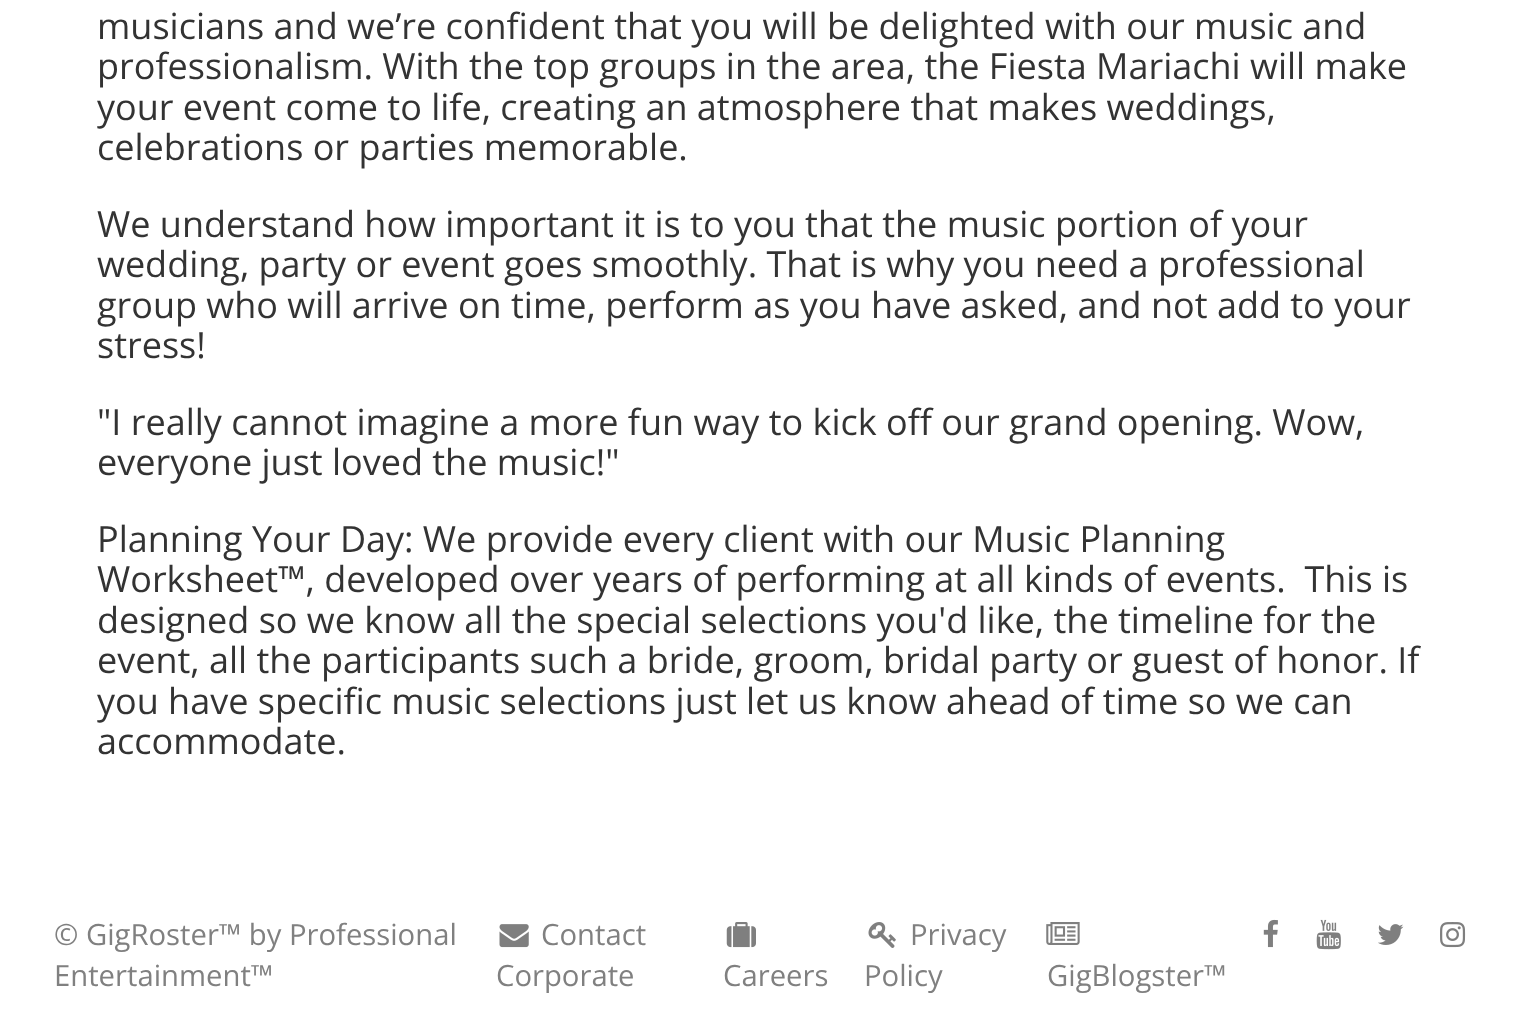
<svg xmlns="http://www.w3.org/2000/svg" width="1518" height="1029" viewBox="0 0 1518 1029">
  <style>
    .t1 { font: 36px Open Sans; fill: #333; }
    .t2 { font: 29.25px Open Sans; fill: #808080; }
  </style>
  <rect width="100%" height="100%" fill="#fff"/>
  <text x="97" y="39" class="t1">musicians and we’re confident that you will be delighted with our music and</text>
  <text x="97" y="79" class="t1">professionalism. With the top groups in the area, the Fiesta Mariachi will make</text>
  <text x="97" y="120" class="t1">your event come to life, creating an atmosphere that makes weddings,</text>
  <text x="97" y="160" class="t1">celebrations or parties memorable.</text>
  <text x="97" y="237" class="t1">We understand how important it is to you that the music portion of your</text>
  <text x="97" y="277" class="t1">wedding, party or event goes smoothly. That is why you need a professional</text>
  <text x="97" y="318" class="t1">group who will arrive on time, perform as you have asked, and not add to your</text>
  <text x="97" y="358" class="t1">stress!</text>
  <text x="97" y="435" class="t1">"I really cannot imagine a more fun way to kick off our grand opening. Wow,</text>
  <text x="97" y="475" class="t1">everyone just loved the music!"</text>
  <text x="97" y="552" class="t1">Planning Your Day: We provide every client with our Music Planning</text>
  <text x="97" y="592" class="t1" xml:space="preserve">Worksheet™, developed over years of performing at all kinds of events.  This is</text>
  <text x="97" y="633" class="t1">designed so we know all the special selections you'd like, the timeline for the</text>
  <text x="97" y="673" class="t1">event, all the participants such a bride, groom, bridal party or guest of honor. If</text>
  <text x="97" y="714" class="t1">you have specific music selections just let us know ahead of time so we can</text>
  <text x="97" y="754" class="t1">accommodate.</text>
  <text x="54" y="945" class="t2">© GigRoster™ by Professional</text>
  <text x="54" y="986" class="t2">Entertainment™</text>
  <image x="499" y="924" width="30" height="24" href="images/1.png"/>
  <text x="541" y="945" class="t2">Contact</text>
  <text x="496" y="986" class="t2">Corporate</text>
  <image x="868" y="922" width="28" height="26" href="images/2.png"/>
  <text x="910" y="945" class="t2">Privacy</text>
  <text x="864" y="986" class="t2">Policy</text>
  <image x="1263" y="919" width="15" height="29" href="images/3.png"/>
  <image x="1316" y="919" width="25" height="31" href="images/4.png"/>
  <image x="1378" y="924" width="26" height="21" href="images/5.png"/>
  <image x="1440" y="922" width="26" height="26" href="images/6.png"/>
  <image x="726" y="922" width="30" height="26" href="images/7.png"/>
  <text x="723" y="986" class="t2">Careers</text>
  <image x="1046" y="922" width="34" height="23" href="images/8.png"/>
  <text x="1047" y="986" class="t2">GigBlogster™</text>
</svg>
